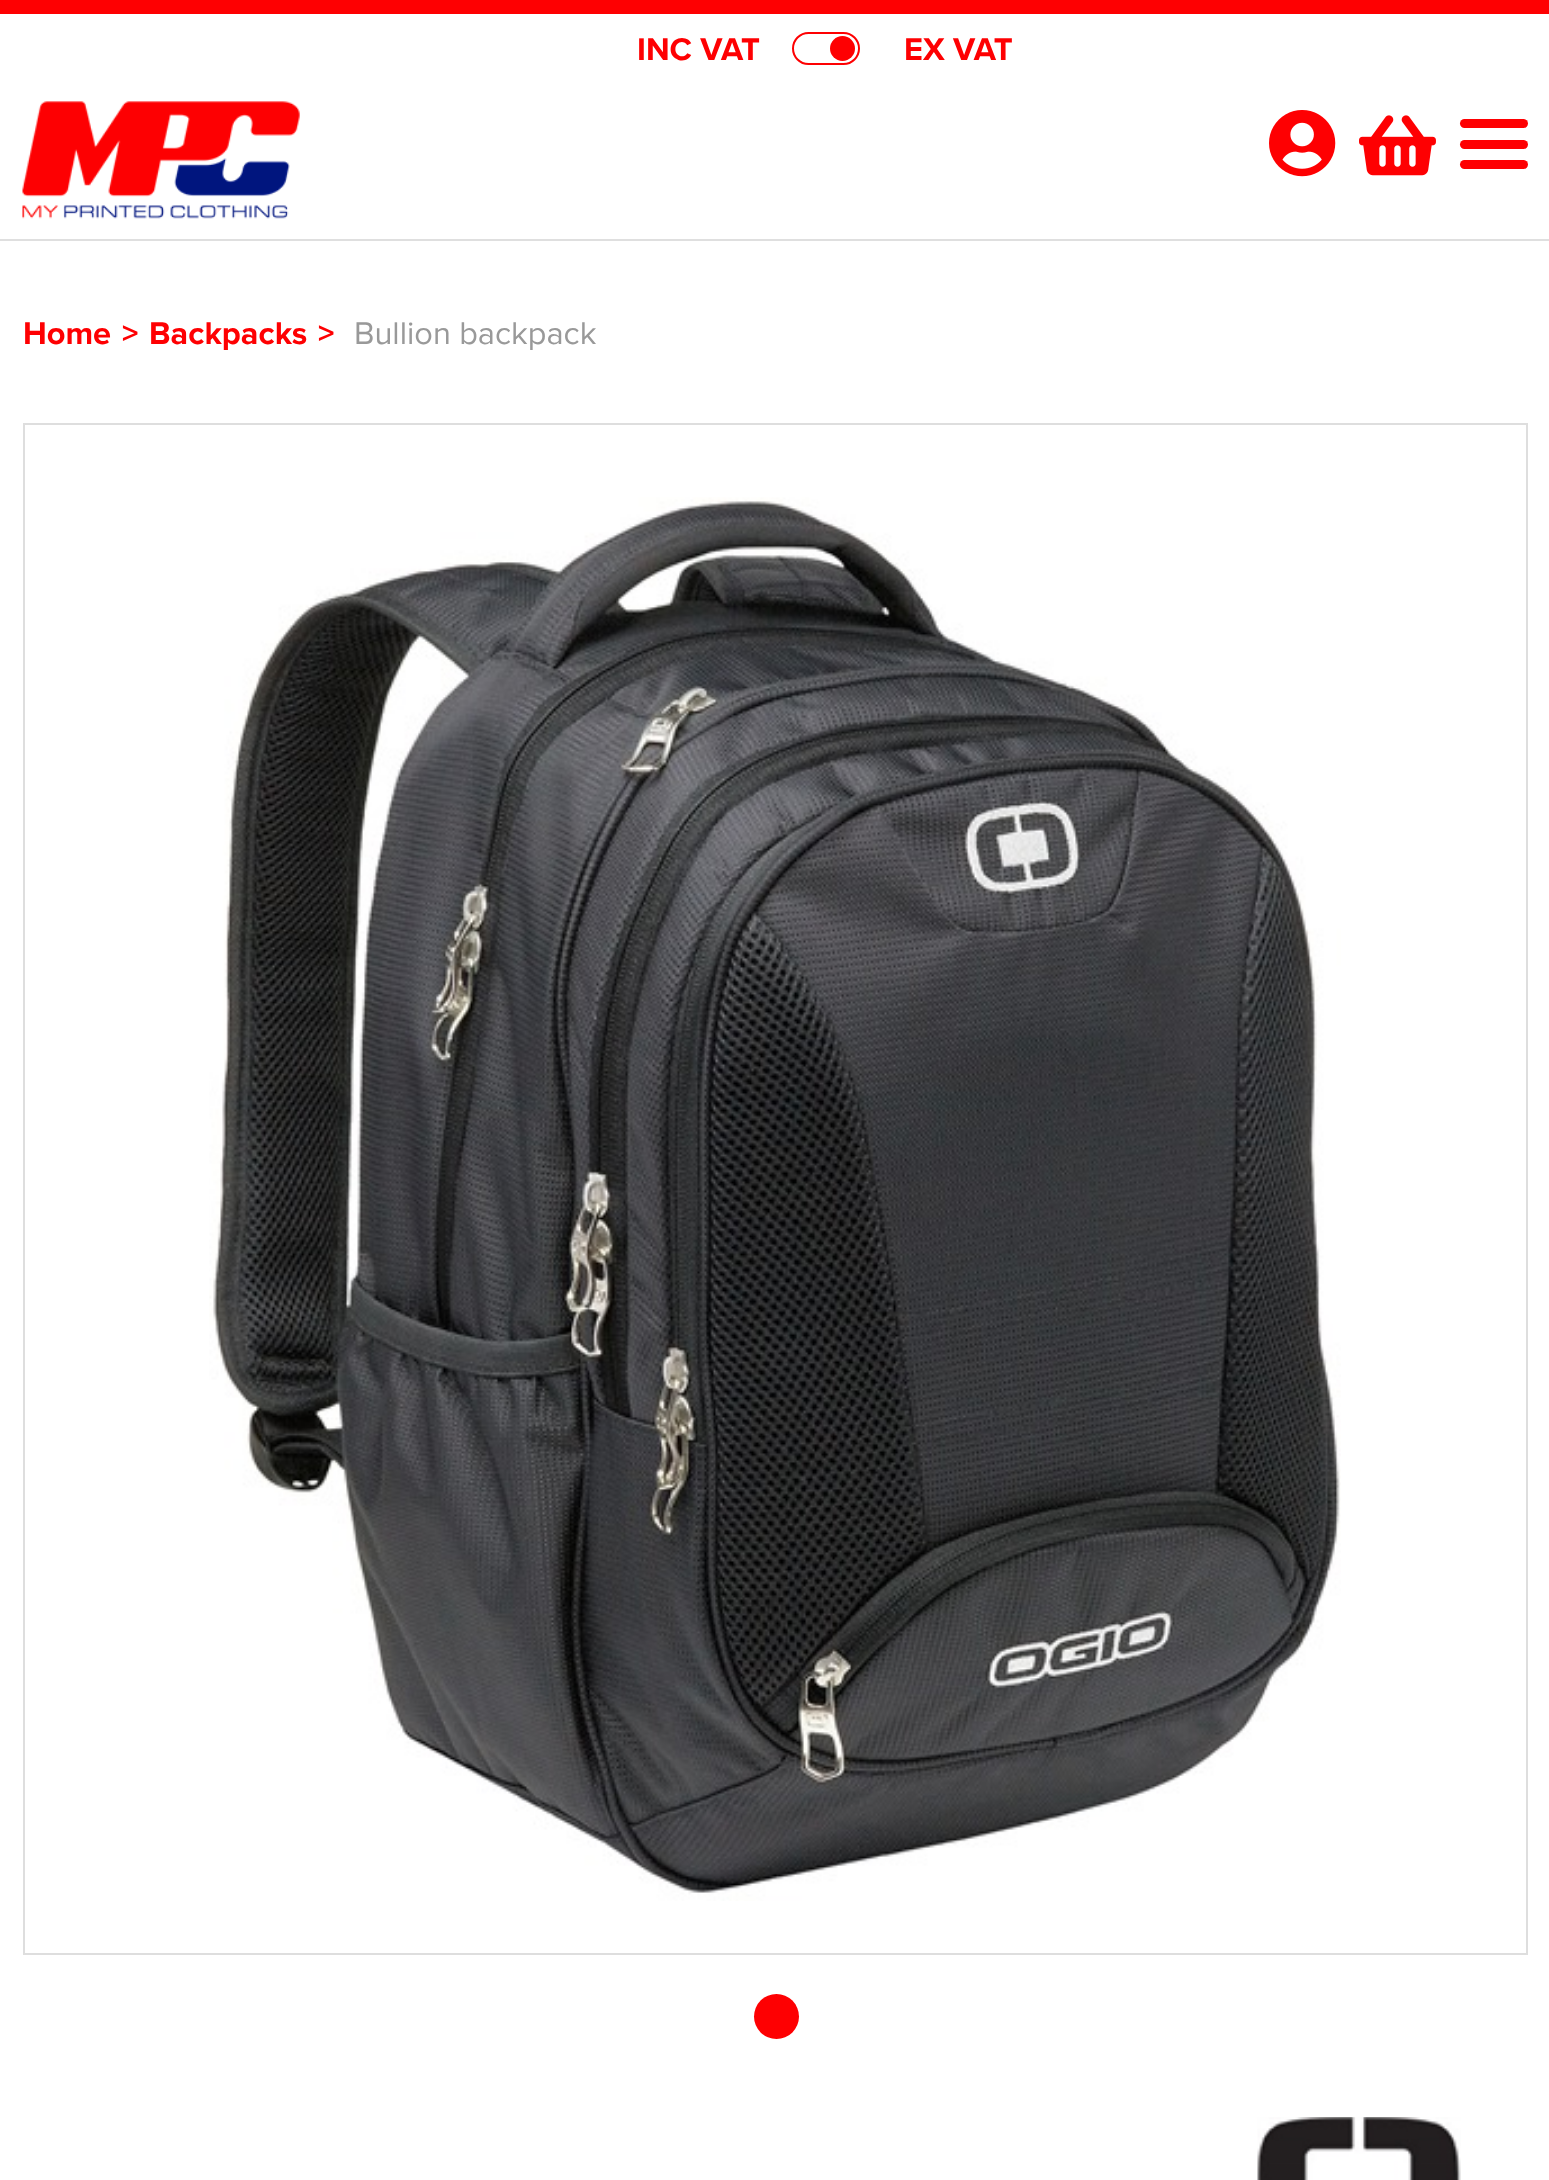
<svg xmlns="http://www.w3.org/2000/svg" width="1549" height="2180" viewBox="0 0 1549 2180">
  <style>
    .t1 { font: bold 32.5px Proxima Nova; fill: #fe0002; }
    .t2 { font: 32.5px Proxima Nova; fill: #999; }
  </style>
  <rect width="100%" height="100%" fill="#fff"/>
  <rect x="0" y="0" width="1549" height="14" fill="#fe0002"/>
  <text x="637" y="60" class="t1">INC VAT</text>
  <rect x="793" y="33" width="66" height="31" rx="15.5" fill="none" stroke="#fe0002" stroke-width="2"/>
  <circle cx="842.5" cy="48.5" r="12.5" fill="#fe0002"/>
  <text x="904" y="60" class="t1">EX VAT</text>
  <image x="1269" y="110" width="67" height="67" href="images/1.png"/>
  <image x="1359" y="115" width="77" height="61" href="images/2.png"/>
  <rect x="1460" y="119" width="68" height="9" rx="4.5" fill="#fe0002"/>
  <rect x="1460" y="140" width="68" height="9" rx="4.5" fill="#fe0002"/>
  <rect x="1460" y="160" width="68" height="9" rx="4.5" fill="#fe0002"/>
  <image x="22" y="101" width="278" height="118" href="images/3.png"/>
  <rect x="0" y="239" width="1549" height="2" fill="#dfdfdf"/>
  <text x="23" y="344" class="t1">Home</text>
  <text x="122" y="344" class="t1">&gt;</text>
  <text x="149" y="344" class="t1">Backpacks</text>
  <text x="318" y="344" class="t1">&gt;</text>
  <text x="354" y="344" class="t2">Bullion backpack</text>
  <rect x="24" y="424" width="1503" height="1530" fill="none" stroke="#dedede" stroke-width="2"/>
  <image x="209" y="497" width="1132" height="1404" href="images/4.png"/>
  <circle cx="776.5" cy="2016.5" r="22.5" fill="#fe0002"/>
  <image x="1257" y="2117" width="204" height="63" href="images/5.png"/>
</svg>
